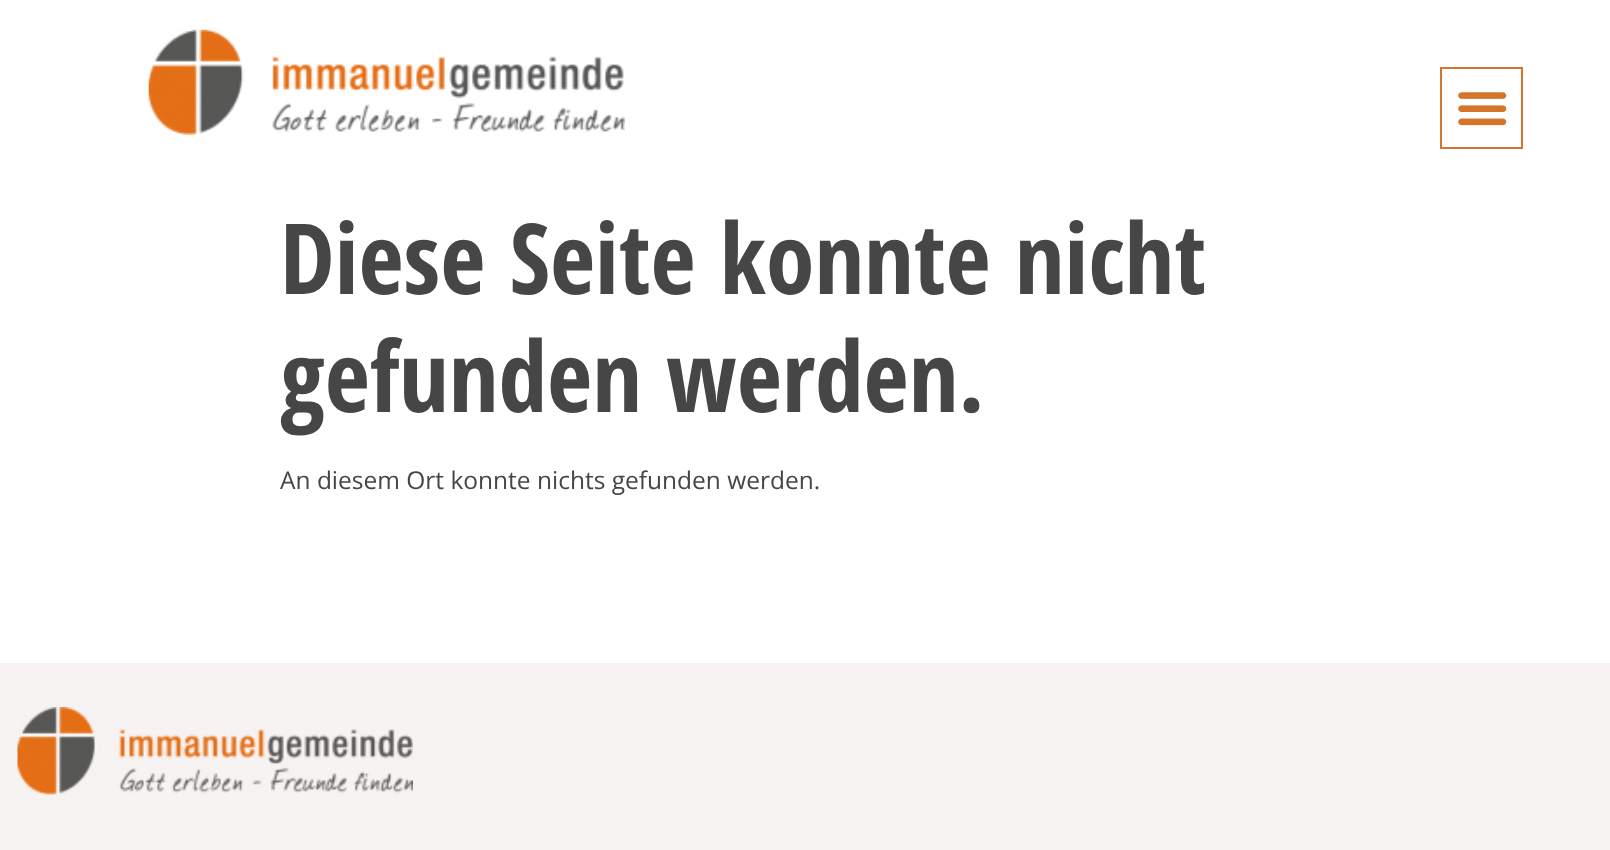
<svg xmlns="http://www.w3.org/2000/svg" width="1610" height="850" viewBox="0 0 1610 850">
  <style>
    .t1 { font: bold 98px Open Sans Condensed; fill: #464646; }
    .t2 { font: 24.5px Open Sans; fill: #464646; }
  </style>
  <rect width="100%" height="100%" fill="#fff"/>
  <image x="148" y="29" width="477" height="106" href="images/1.png"/>
  <rect x="1441" y="68" width="81" height="80" fill="none" stroke="#d4752b" stroke-width="2"/>
  <image x="1458" y="92" width="49" height="34" href="images/2.png"/>
  <text x="280" y="294" class="t1">Diese Seite konnte nicht</text>
  <text x="280" y="412" class="t1">gefunden werden.</text>
  <text x="280" y="489" class="t2">An diesem Ort konnte nichts gefunden werden.</text>
  <rect x="0" y="663" width="1610" height="187" fill="#f7f3f2"/>
  <image x="17" y="707" width="396" height="88" href="images/3.png"/>
</svg>
